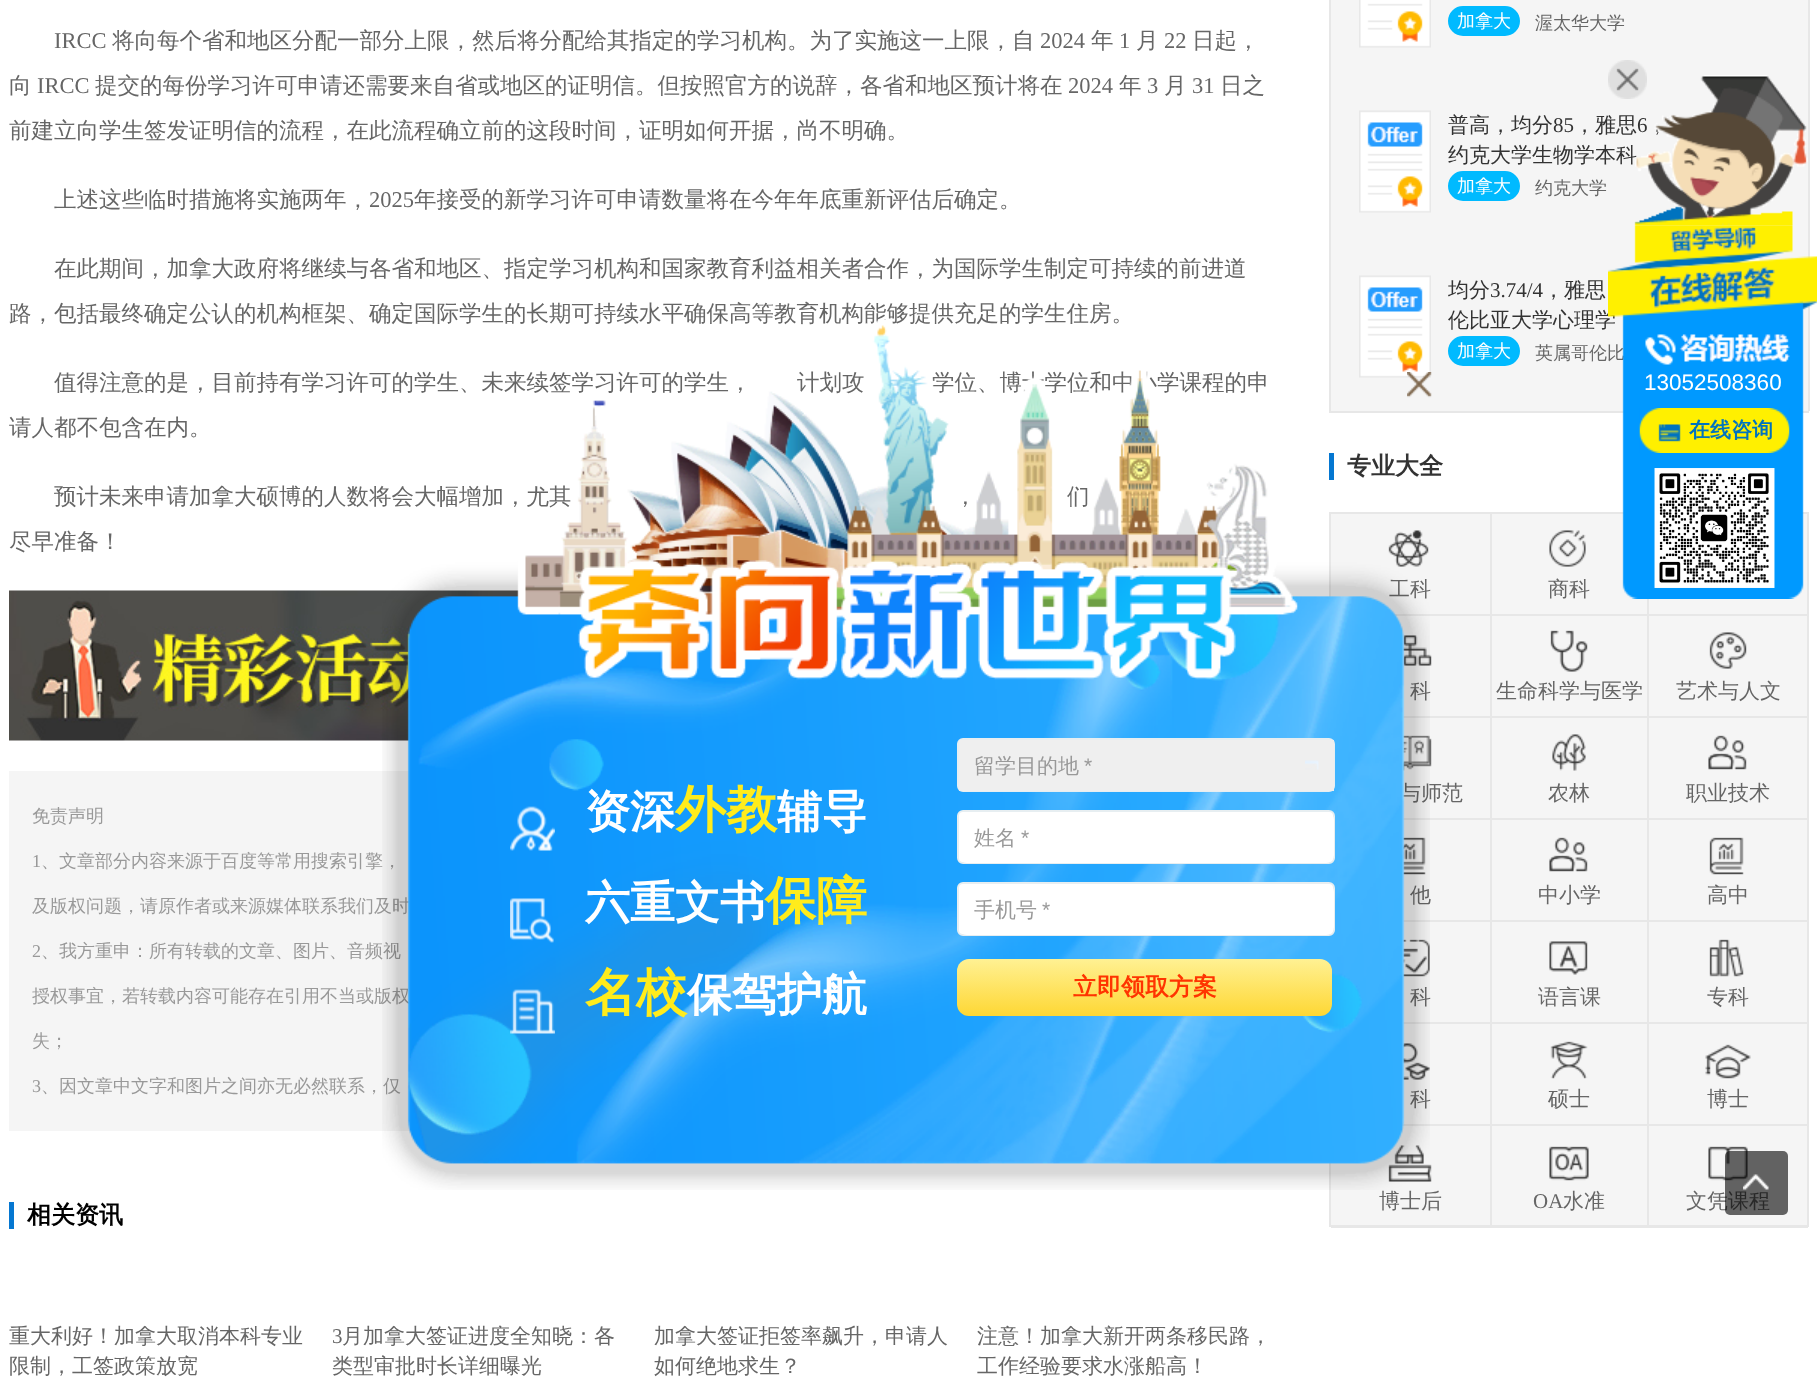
<svg xmlns="http://www.w3.org/2000/svg" width="1817" height="1379" viewBox="0 0 1817 1379">
  <style>
    .t1 { font: 22.5px Liberation Serif; fill: #666; }
    .t2 { font: 500 22.5px WenQuanYi Zen Hei; fill: #666; }
    .t3 { font: 500 18px WenQuanYi Zen Hei; fill: #999; }
    .t4 { font: 18px Liberation Serif; fill: #999; }
    .t5 { font: bold 24px WenQuanYi Zen Hei; fill: #000; }
    .t6 { font: 500 21px WenQuanYi Zen Hei; fill: #666; }
    .t7 { font: 21px Liberation Serif; fill: #666; }
    .t8 { font: 500 18px WenQuanYi Zen Hei; fill: #fff; }
    .t9 { font: 500 18px WenQuanYi Zen Hei; fill: #666; }
    .t10 { font: 500 21px WenQuanYi Zen Hei; fill: #333; }
    .t11 { font: 21px Liberation Serif; fill: #333; }
    .t12 { font: bold 24px WenQuanYi Zen Hei; fill: #333; }
    .t13 { font: 22.5px Liberation Sans; fill: #fff; }
    .t14 { font: bold 21px WenQuanYi Zen Hei; fill: #0073bf; }
    .t15 { font: bold 45px WenQuanYi Zen Hei; fill: #fff; }
    .t16 { font: bold 51px WenQuanYi Zen Hei; fill: #ffec1c; }
    .t17 { font: 500 21px WenQuanYi Zen Hei; fill: #999; }
    .t18 { font: 21px Liberation Sans; fill: #999; }
    .t19 { font: bold 24px WenQuanYi Zen Hei; fill: #ff3400; }
  </style>
  <defs>
    <clipPath id="clip1"><rect x="1448" y="276" width="330" height="60"/></clipPath>
    <linearGradient id="g1" gradientUnits="userSpaceOnUse" x1="1145" y1="959" x2="1145" y2="1016"><stop offset="0" stop-color="#fff193"/><stop offset="1" stop-color="#fed734"/></linearGradient>
  </defs>
  <rect width="100%" height="100%" fill="#fff"/>
  <text x="54" y="48" class="t1">IRCC</text>
  <text x="112" y="48" class="t2">将向每个省和地区分配一部分上限，然后将分配给其指定的学习机构。为了实施这一上限，自</text>
  <text x="1040" y="48" class="t1">2024</text>
  <text x="1091" y="48" class="t2">年</text>
  <text x="1119" y="48" class="t1">1</text>
  <text x="1136" y="48" class="t2">月</text>
  <text x="1164" y="48" class="t1">22</text>
  <text x="1192" y="48" class="t2">日起，</text>
  <text x="9" y="93" class="t2">向</text>
  <text x="37" y="93" class="t1">IRCC</text>
  <text x="95" y="93" class="t2">提交的每份学习许可申请还需要来自省或地区的证明信。但按照官方的说辞，各省和地区预计将在</text>
  <text x="1068" y="93" class="t1">2024</text>
  <text x="1119" y="93" class="t2">年</text>
  <text x="1147" y="93" class="t1">3</text>
  <text x="1164" y="93" class="t2">月</text>
  <text x="1192" y="93" class="t1">31</text>
  <text x="1220" y="93" class="t2">日之</text>
  <text x="9" y="138" class="t2">前建立向学生签发证明信的流程，在此流程确立前的这段时间，证明如何开据，尚不明确。</text>
  <text x="54" y="207" class="t2">上述这些临时措施将实施两年，</text>
  <text x="369" y="207" class="t1">2025</text>
  <text x="414" y="207" class="t2">年接受的新学习许可申请数量将在今年年底重新评估后确定。</text>
  <text x="54" y="276" class="t2">在此期间，加拿大政府将继续与各省和地区、指定学习机构和国家教育利益相关者合作，为国际学生制定可持续的前进道</text>
  <text x="9" y="321" class="t2">路，包括最终确定公认的机构框架、确定国际学生的长期可持续水平确保高等教育机构能够提供充足的学生住房。</text>
  <text x="54" y="390" class="t2">值得注意的是，目前持有学习许可的学生、未来续签学习许可的学生，</text>
  <text x="797" y="390" class="t2">计划攻</text>
  <text x="932" y="390" class="t2">学位、博士学位和中小学课程的申</text>
  <text x="9" y="435" class="t2">请人都不包含在内。</text>
  <text x="54" y="504" class="t2">预计未来申请加拿大硕博的人数将会大幅增加，尤其</text>
  <text x="954" y="504" class="t2">，</text>
  <text x="1067" y="504" class="t2">们</text>
  <text x="9" y="549" class="t2">尽早准备！</text>
  <image x="9" y="590" width="510" height="151" href="images/1.png"/>
  <rect x="9" y="771" width="403" height="360" fill="#f5f5f5"/>
  <text x="32" y="822" class="t3">免责声明</text>
  <text x="32" y="867" class="t4">1</text>
  <text x="41" y="867" word-spacing="-1" class="t3">、文章部分内容来源于百度等常用搜索引擎，</text>
  <text x="32" y="912" class="t3">及版权问题，请原作者或来源媒体联系我们及时</text>
  <text x="32" y="957" class="t4">2</text>
  <text x="41" y="957" class="t3">、我方重申：所有转载的文章、图片、音频视</text>
  <text x="32" y="1002" class="t3">授权事宜，若转载内容可能存在引用不当或版权</text>
  <text x="32" y="1047" class="t3">失；</text>
  <text x="32" y="1092" class="t4">3</text>
  <text x="41" y="1092" word-spacing="-1" class="t3">、因文章中文字和图片之间亦无必然联系，仅</text>
  <rect x="9" y="1202" width="5" height="27" fill="#0577d1"/>
  <text x="27" y="1223" class="t5">相关资讯</text>
  <text x="9" y="1343" class="t6">重大利好！加拿大取消本科专业</text>
  <text x="9" y="1373" class="t6">限制，工签政策放宽</text>
  <text x="332" y="1343" class="t7">3</text>
  <text x="342" y="1343" class="t6">月加拿大签证进度全知晓：各</text>
  <text x="332" y="1373" class="t6">类型审批时长详细曝光</text>
  <text x="654" y="1343" class="t6">加拿大签证拒签率飙升，申请人</text>
  <text x="654" y="1373" class="t6">如何绝地求生？</text>
  <text x="977" y="1343" class="t6">注意！加拿大新开两条移民路，</text>
  <text x="977" y="1373" class="t6">工作经验要求水涨船高！</text>
  <rect x="1331" y="0" width="477" height="411" fill="#f5f5f5"/>
  <rect x="1329" y="411" width="480" height="2" fill="#e7e7e7"/>
  <image x="1359" y="0" width="72" height="48" href="images/2.png"/>
  <rect x="1808" y="0" width="2" height="411" fill="#e7e7e7"/>
  <rect x="1329" y="0" width="2" height="411" fill="#e7e7e7"/>
  <rect x="1449" y="7" width="70" height="28" rx="14" fill="#00baff" stroke="#00baff" stroke-width="2"/>
  <text x="1457" y="27" class="t8">加拿大</text>
  <text x="1535" y="29" class="t9">渥太华大学</text>
  <image x="1359" y="110" width="72" height="103" href="images/3.png"/>
  <text x="1448" y="132" class="t10">普高，均分</text>
  <text x="1553" y="132" class="t11">85</text>
  <text x="1574" y="132" class="t10">，雅思</text>
  <text x="1637" y="132" class="t11">6</text>
  <text x="1647" y="132" class="t10">，</text>
  <text x="1448" y="162" class="t10">约克大学生物学本科</text>
  <rect x="1449" y="172" width="70" height="28" rx="14" fill="#00baff" stroke="#00baff" stroke-width="2"/>
  <text x="1457" y="192" class="t8">加拿大</text>
  <text x="1535" y="194" class="t9">约克大学</text>
  <image x="1359" y="275" width="72" height="103" href="images/3.png"/>
  <g clip-path="url(#clip1)">
    <text x="1448" y="297" class="t10">均分</text>
  </g>
  <text x="1490" y="297" class="t11">3.74/4</text>
  <text x="1543" y="297" class="t10">，雅思</text>
  <text x="1448" y="327" class="t10">伦比亚大学心理学</text>
  <rect x="1449" y="337" width="70" height="28" rx="14" fill="#00baff" stroke="#00baff" stroke-width="2"/>
  <text x="1457" y="357" class="t8">加拿大</text>
  <text x="1535" y="359" class="t9">英属哥伦比</text>
  <rect x="1329" y="453" width="5" height="27" fill="#0577d1"/>
  <text x="1347" y="474" class="t12">专业大全</text>
  <rect x="1330" y="513" width="478" height="713" fill="#f5f5f5" stroke="#e7e7e7" stroke-width="2"/>
  <rect x="1393" y="614" width="415" height="2" fill="#e7e7e7"/>
  <rect x="1403" y="716" width="405" height="2" fill="#e7e7e7"/>
  <rect x="1403" y="818" width="405" height="2" fill="#e7e7e7"/>
  <rect x="1403" y="920" width="405" height="2" fill="#e7e7e7"/>
  <rect x="1403" y="1022" width="405" height="2" fill="#e7e7e7"/>
  <rect x="1402" y="1124" width="406" height="2" fill="#e7e7e7"/>
  <rect x="1490" y="513" width="2" height="713" fill="#e7e7e7"/>
  <image x="1388" y="530" width="41" height="37" href="images/4.png"/>
  <text x="1389" y="596" class="t6">工科</text>
  <image x="1549" y="530" width="37" height="37" href="images/5.png"/>
  <text x="1548" y="596" class="t6">商科</text>
  <image x="1402" y="635" width="30" height="31" href="images/6.png"/>
  <text x="1410" y="698" class="t6">科</text>
  <image x="1550" y="630" width="38" height="42" href="images/7.png"/>
  <text x="1496" y="698" class="t6">生命科学与医学</text>
  <image x="1709" y="632" width="38" height="37" href="images/8.png"/>
  <text x="1676" y="698" class="t6">艺术与人文</text>
  <image x="1403" y="735" width="29" height="36" href="images/9.png"/>
  <text x="1400" y="800" class="t6">与师范</text>
  <image x="1552" y="734" width="34" height="37" href="images/10.png"/>
  <text x="1548" y="800" class="t6">农林</text>
  <image x="1708" y="735" width="39" height="35" href="images/11.png"/>
  <text x="1686" y="800" class="t6">职业技术</text>
  <image x="1403" y="837" width="23" height="38" href="images/12.png"/>
  <text x="1410" y="902" class="t6">他</text>
  <image x="1549" y="837" width="39" height="35" href="images/11.png"/>
  <text x="1538" y="902" class="t6">中小学</text>
  <image x="1709" y="837" width="35" height="38" href="images/13.png"/>
  <text x="1707" y="902" class="t6">高中</text>
  <image x="1403" y="939" width="27" height="38" href="images/14.png"/>
  <text x="1410" y="1004" class="t6">科</text>
  <image x="1549" y="941" width="39" height="34" href="images/15.png"/>
  <text x="1538" y="1004" class="t6">语言课</text>
  <image x="1709" y="939" width="35" height="38" href="images/16.png"/>
  <text x="1707" y="1004" class="t6">专科</text>
  <image x="1403" y="1043" width="27" height="37" href="images/17.png"/>
  <text x="1410" y="1106" class="t6">科</text>
  <image x="1550" y="1041" width="38" height="38" href="images/18.png"/>
  <text x="1548" y="1106" class="t6">硕士</text>
  <image x="1705" y="1044" width="46" height="35" href="images/19.png"/>
  <text x="1707" y="1106" class="t6">博士</text>
  <rect x="1331" y="1227" width="477" height="1" fill="#e7e7e7"/>
  <image x="1388" y="1145" width="44" height="37" href="images/20.png"/>
  <text x="1379" y="1208" class="t6">博士后</text>
  <image x="1549" y="1146" width="40" height="35" href="images/21.png"/>
  <text x="1533" y="1208" class="t7">OA</text>
  <text x="1563" y="1208" class="t6">水准</text>
  <image x="1708" y="1146" width="40" height="35" href="images/22.png"/>
  <text x="1686" y="1208" class="t6">文凭课程</text>
  <rect x="1647" y="599" width="2" height="627" fill="#e7e7e7"/>
  <image x="1608" y="224" width="209" height="375" href="images/23.png"/>
  <image x="1634" y="75" width="174" height="150" href="images/25.png"/>
  <image x="1608" y="60" width="39" height="39" href="images/24.png"/>
  <text x="1644" y="390" class="t13">13052508360</text>
  <image x="1639" y="408" width="151" height="45" href="images/26.png"/>
  <text x="1689" y="437" class="t14">在线咨询</text>
  <image x="1654" y="468" width="121" height="120" href="images/27.png"/>
  <image x="382" y="317" width="1048" height="873" href="images/28.png"/>
  <image x="1407" y="372" width="25" height="26" href="images/29.png"/>
  <image x="510" y="806" width="45" height="45" href="images/30.png"/>
  <text x="585" y="827" class="t15">资深</text>
  <text x="675" y="827" class="t16">外教</text>
  <text x="777" y="827" class="t15">辅导</text>
  <image x="510" y="898" width="44" height="45" href="images/31.png"/>
  <text x="585" y="918" class="t15">六重文书</text>
  <text x="765" y="918" class="t16">保障</text>
  <image x="510" y="989" width="45" height="45" href="images/32.png"/>
  <text x="585" y="1010" class="t16">名校</text>
  <text x="687" y="1010" class="t15">保驾护航</text>
  <rect x="958" y="739" width="376" height="52" rx="5" fill="none" stroke="#e7eef1" stroke-width="2"/>
  <rect x="959" y="740" width="375" height="51" fill="#efefef"/>
  <text x="974" y="773" class="t17">留学目的地</text>
  <text x="1084" y="773" class="t18">*</text>
  <image x="1305" y="760" width="14" height="10" href="images/33.png"/>
  <rect x="958" y="811" width="376" height="52" rx="5" fill="#fff" stroke="#e7eef1" stroke-width="2"/>
  <rect x="959" y="812" width="375" height="51" rx="8" fill="#fff"/>
  <text x="974" y="845" class="t17">姓名</text>
  <text x="1021" y="845" class="t18">*</text>
  <rect x="958" y="883" width="376" height="52" rx="5" fill="#fff" stroke="#e7eef1" stroke-width="2"/>
  <rect x="959" y="884" width="375" height="51" rx="8" fill="#fff"/>
  <text x="974" y="917" class="t17">手机号</text>
  <text x="1042" y="917" class="t18">*</text>
  <rect x="957" y="959" width="375" height="57" rx="12" fill="url(#g1)"/>
  <text x="1073" y="995" class="t19">立即领取方案</text>
  <rect x="1725" y="1151" width="63" height="64" rx="5" fill="#00000099"/>
  <image x="1743" y="1174" width="26" height="16" href="images/34.png"/>
</svg>
